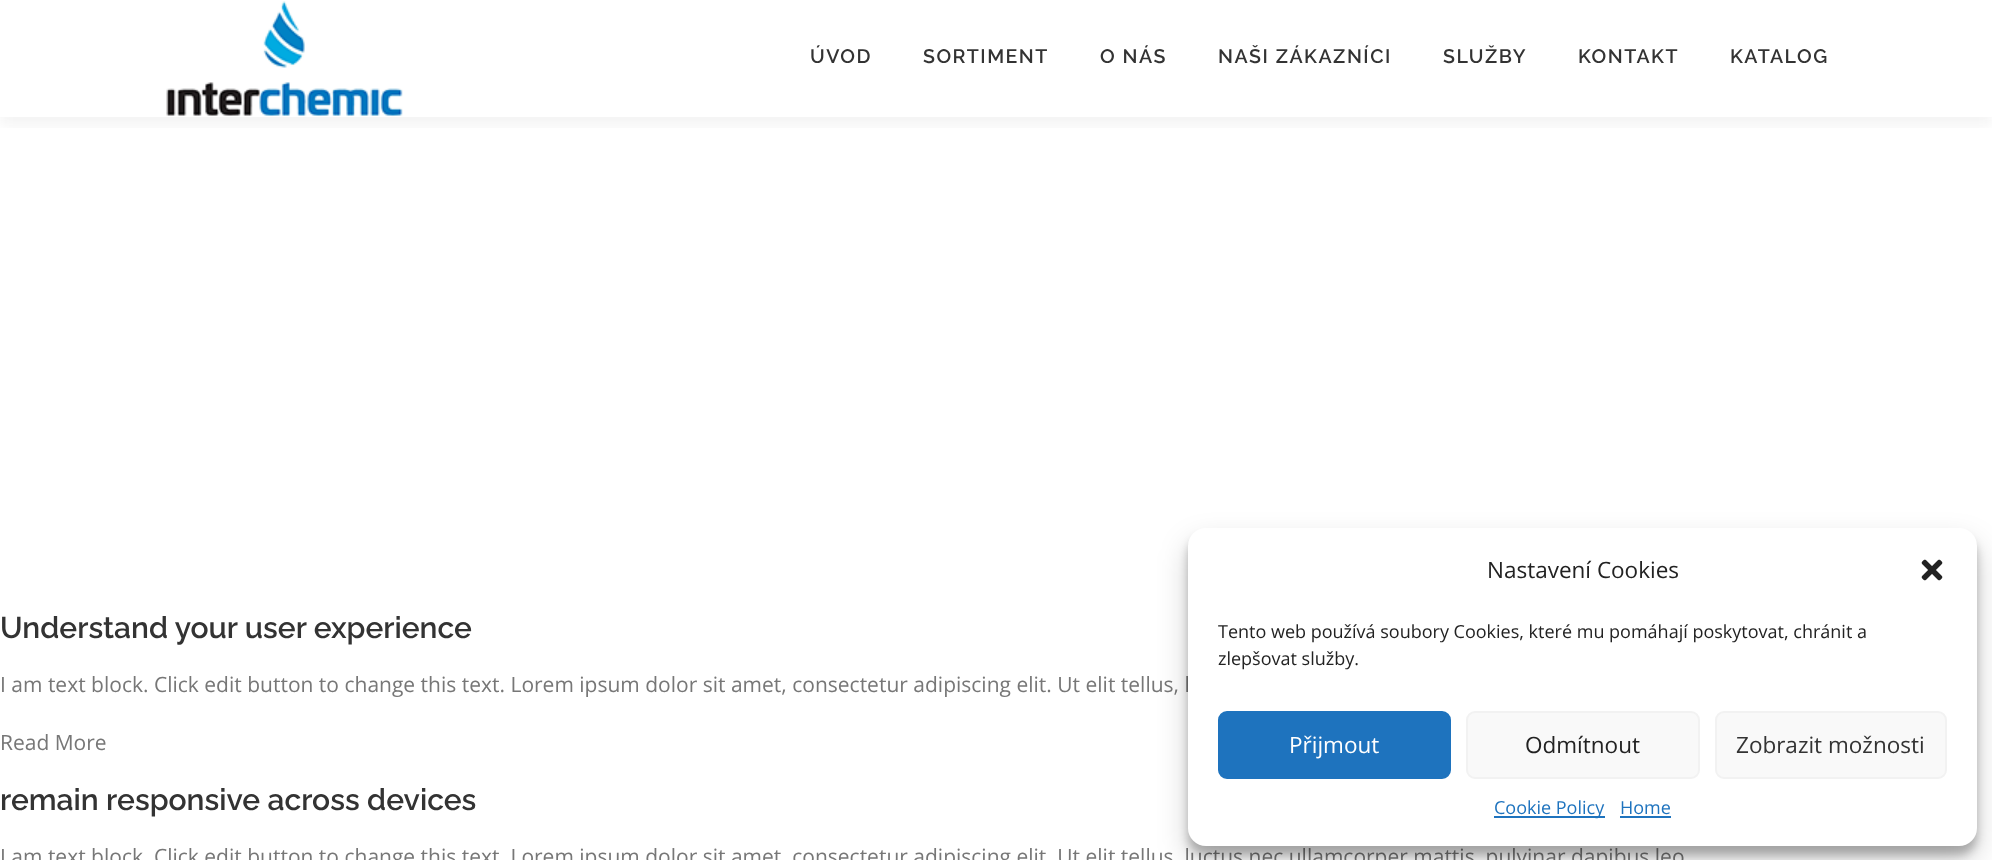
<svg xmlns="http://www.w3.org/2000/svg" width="1992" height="860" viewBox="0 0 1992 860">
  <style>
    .t1 { font: 600 19.5px Raleway; letter-spacing: 1.5px; fill: #333; }
    .t2 { font: 600 30px Raleway; fill: #333; }
    .t3 { font: 21px Open Sans; fill: #777; }
    .t4 { font: 22.5px Open Sans; fill: #222; }
    .t5 { font: 18px Open Sans; fill: #222; }
    .t6 { font: 22.5px Open Sans; fill: #fff; }
    .t7 { font: 22.5px Open Sans; fill: #333; }
    .t8 { font: 18px Open Sans; fill: #1e73be; }
  </style>
  <defs>
    <clipPath id="clip1"><rect x="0" y="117" width="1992" height="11"/></clipPath>
  </defs>
  <rect width="100%" height="100%" fill="#fff"/>
  <g clip-path="url(#clip1)">
    <rect x="0" y="8" width="1992" height="117" fill="#3232320f" filter="blur(7.5px)"/>
  </g>
  <image x="166" y="1" width="237" height="116" href="images/1.png"/>
  <text x="810" y="63" class="t1">ÚVOD</text>
  <text x="923" y="63" class="t1">SORTIMENT</text>
  <text x="1100" y="63" class="t1">O NÁS</text>
  <text x="1218" y="63" class="t1">NAŠI ZÁKAZNÍCI</text>
  <text x="1443" y="63" class="t1">SLUŽBY</text>
  <text x="1578" y="63" class="t1">KONTAKT</text>
  <text x="1730" y="63" class="t1">KATALOG</text>
  <text x="0" y="638" class="t2">Understand your user experience</text>
  <text x="0" y="692" class="t3">I am text block. Click edit button to change this text. Lorem ipsum dolor sit amet, consectetur adipiscing elit. Ut elit tellus, l</text>
  <text x="0" y="750" class="t3">Read More</text>
  <text x="0" y="810" class="t2">remain responsive across devices</text>
  <text x="0" y="864" class="t3">I am text block. Click edit button to change this text. Lorem ipsum dolor sit amet, consectetur adipiscing elit. Ut elit tellus, luctus nec ullamcorper mattis, pulvinar dapibus leo</text>
  <rect x="1188" y="537" width="789" height="318" rx="18" fill="#0000003b" filter="blur(4.5px)"/>
  <rect x="1188" y="543" width="789" height="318" rx="18" fill="#00000030" filter="blur(15px)"/>
  <rect x="1188" y="528" width="789" height="318" rx="18" fill="#fff"/>
  <text x="1487" y="578" class="t4">Nastavení Cookies</text>
  <image x="1921" y="559" width="22" height="22" href="images/2.png"/>
  <text x="1218" y="638" class="t5">Tento web používá soubory Cookies, které mu pomáhají poskytovat, chránit a</text>
  <text x="1218" y="665" class="t5">zlepšovat služby.</text>
  <rect x="1219" y="712" width="231" height="66" rx="8" fill="#1e73be" stroke="#1e73be" stroke-width="2"/>
  <text x="1289" y="753" class="t6">Přijmout</text>
  <rect x="1467" y="712" width="232" height="66" rx="8" fill="#f9f9f9" stroke="#f2f2f2" stroke-width="2"/>
  <text x="1525" y="753" class="t4">Odmítnout</text>
  <rect x="1716" y="712" width="230" height="66" rx="8" fill="#f9f9f9" stroke="#f2f2f2" stroke-width="2"/>
  <text x="1736" y="753" class="t7">Zobrazit možnosti</text>
  <rect x="1494" y="816" width="111" height="2" fill="#1e73be"/>
  <text x="1494" y="814" class="t8">Cookie Policy</text>
  <text x="1620" y="814" class="t8">Home</text>
  <rect x="1620" y="816" width="51" height="2" fill="#1e73be"/>
</svg>
